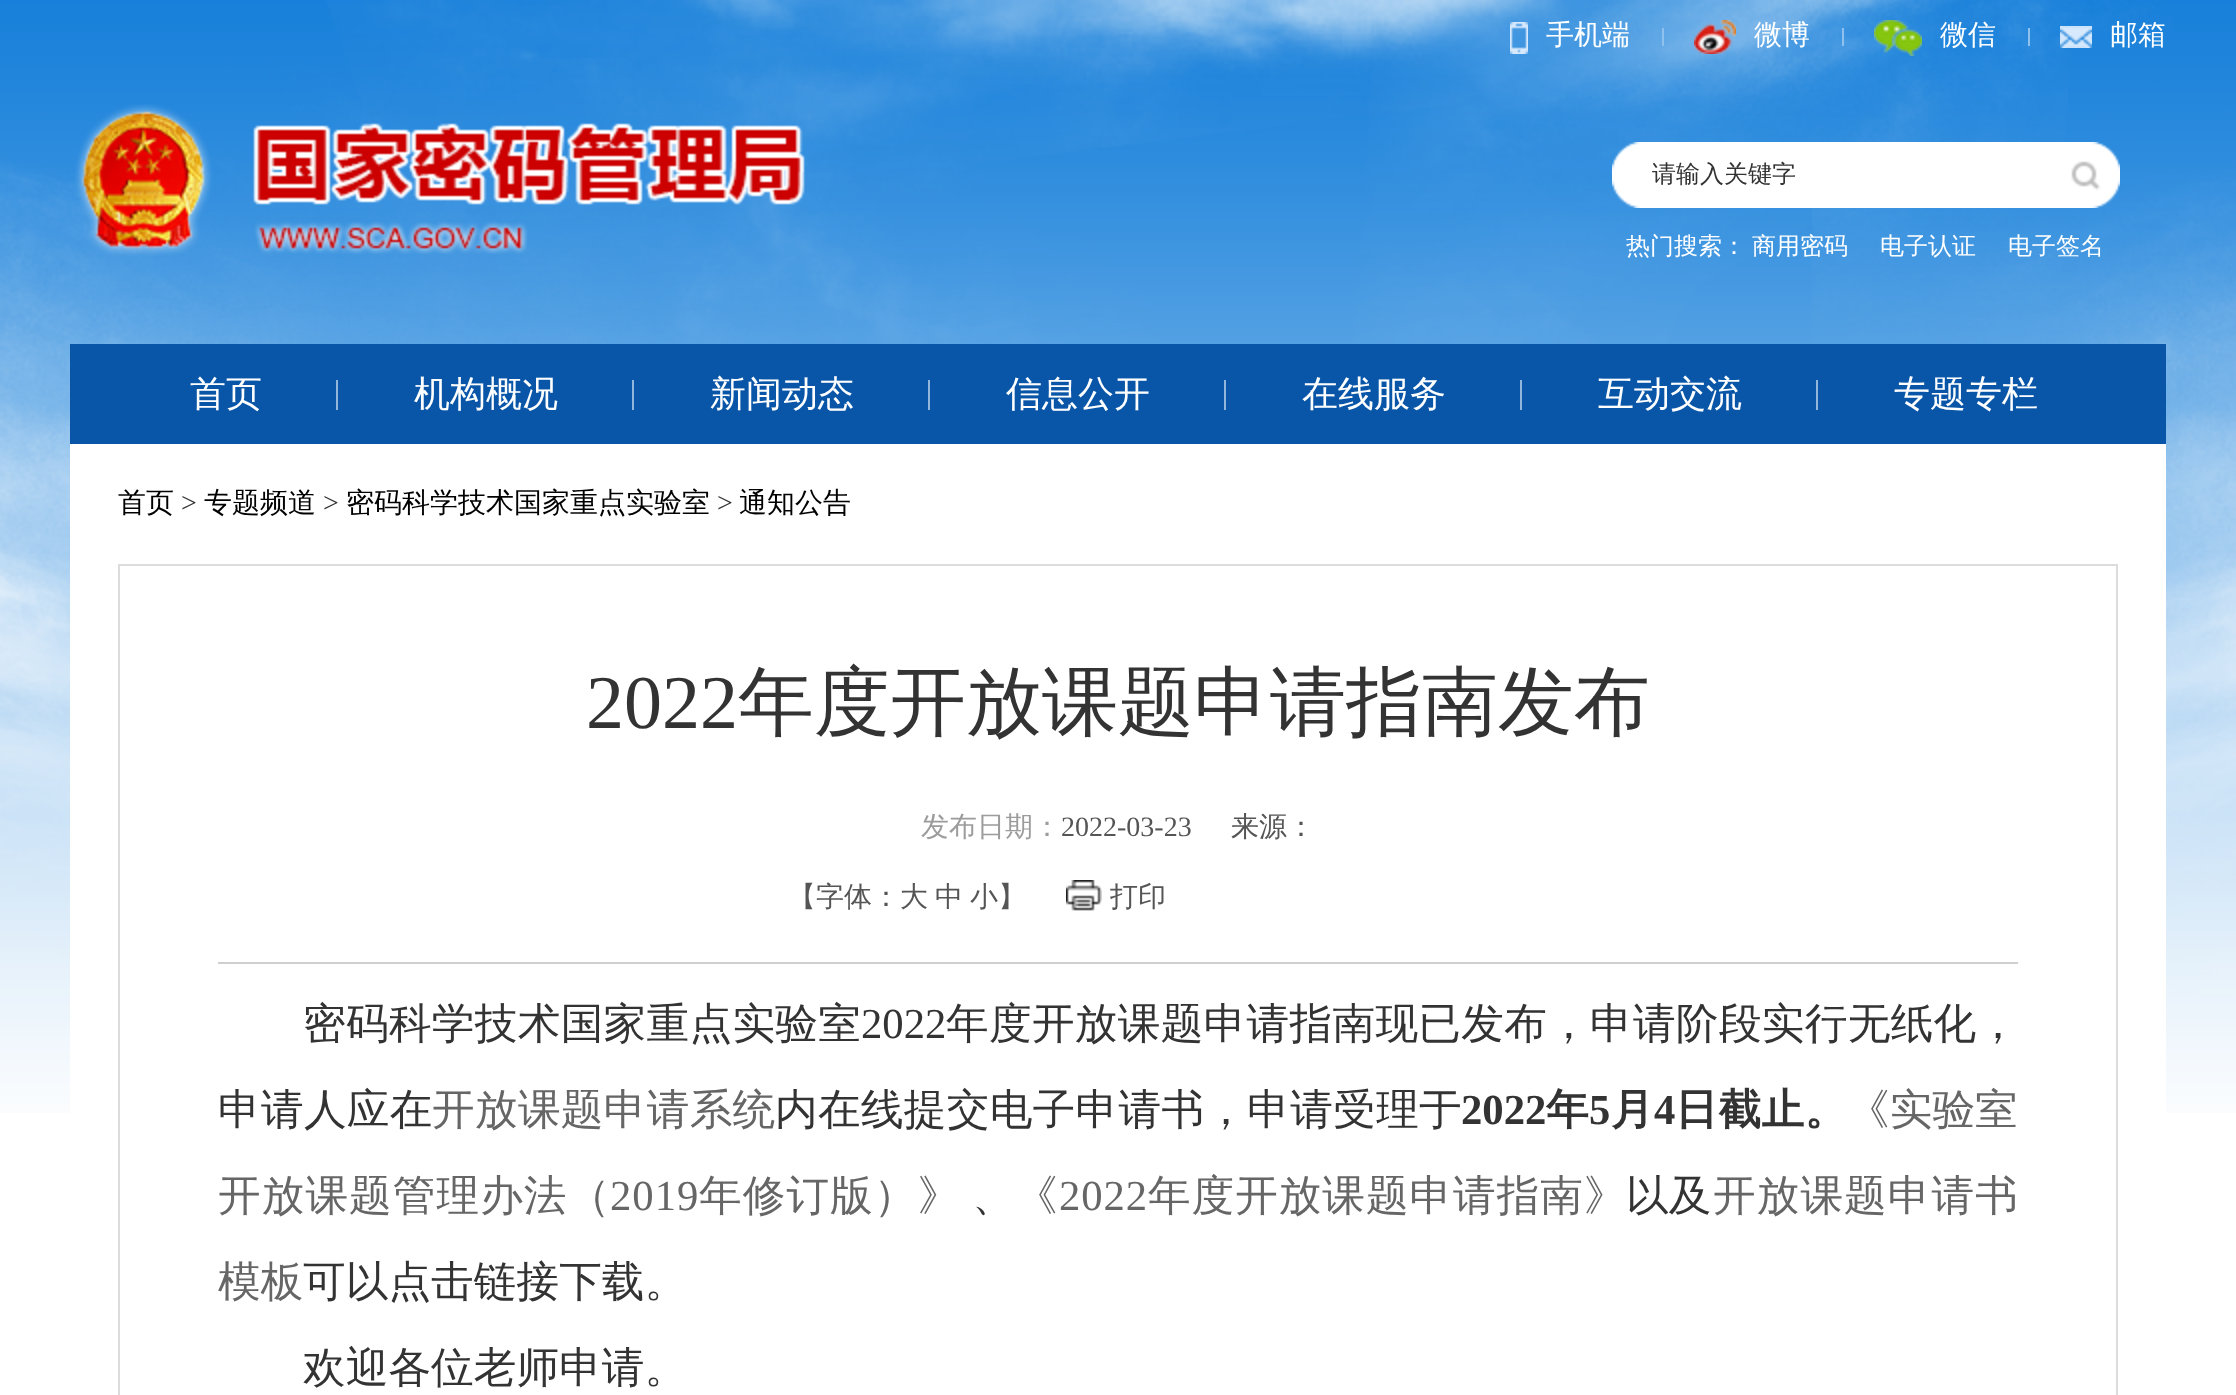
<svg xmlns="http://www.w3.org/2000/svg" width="2236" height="1395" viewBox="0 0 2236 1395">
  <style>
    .t1 { font: 500 28px WenQuanYi Zen Hei; fill: #fff; }
    .t2 { font: 500 24px WenQuanYi Zen Hei; fill: #333; }
    .t3 { font: 500 24px WenQuanYi Zen Hei; fill: #fff; }
    .t4 { font: 500 36px WenQuanYi Zen Hei; fill: #fff; }
    .t5 { font: 500 28px WenQuanYi Zen Hei; fill: #000; }
    .t6 { font: 28px Liberation Serif; fill: #333; }
    .t7 { font: 76px Liberation Serif; fill: #333; }
    .t8 { font: 500 76px WenQuanYi Zen Hei; fill: #333; }
    .t9 { font: 500 28px WenQuanYi Zen Hei; fill: #9c9c9c; }
    .t10 { font: 28px Liberation Serif; fill: #555; }
    .t11 { font: 500 28px WenQuanYi Zen Hei; fill: #555; }
    .t12 { font: 500 42.7px WenQuanYi Zen Hei; letter-spacing: 0.25px; fill: #333; }
    .t13 { font: 42.7px Liberation Serif; fill: #333; }
    .t14 { font: 500 42.7px WenQuanYi Zen Hei; letter-spacing: 0.25px; fill: #666; }
    .t15 { font: bold 42.7px Liberation Serif; fill: #333; }
    .t16 { font: bold 42.7px WenQuanYi Zen Hei; fill: #333; }
    .t17 { font: bold 42.7px WenQuanYi Zen Hei; letter-spacing: 0.5px; fill: #333; }
    .t18 { font: 500 42.7px WenQuanYi Zen Hei; fill: #666; }
    .t19 { font: 500 42.7px WenQuanYi Zen Hei; letter-spacing: 1px; fill: #666; }
    .t20 { font: 42.7px Liberation Serif; letter-spacing: 1px; fill: #666; }
    .t21 { font: 500 42.7px WenQuanYi Zen Hei; fill: #333; }
    .t22 { font: 500 42.7px WenQuanYi Zen Hei; letter-spacing: 0.9px; fill: #666; }
    .t23 { font: 42.7px Liberation Serif; letter-spacing: 0.9px; fill: #666; }
  </style>
  <rect width="100%" height="100%" fill="#fff"/>
  <image x="0" y="0" width="2236" height="1113" href="images/1.png"/>
  <image x="75" y="104" width="730" height="152" href="images/2.png"/>
  <image x="1510" y="22" width="18" height="32" href="images/3.png"/>
  <text x="1546" y="44" class="t1">手机端</text>
  <rect x="1662" y="28" width="2" height="18" fill="#8ec1ed"/>
  <image x="1694" y="20" width="42" height="34" href="images/4.png"/>
  <text x="1754" y="44" class="t1">微博</text>
  <rect x="1842" y="28" width="2" height="18" fill="#8ec1ed"/>
  <image x="1874" y="20" width="48" height="36" href="images/5.png"/>
  <text x="1940" y="44" class="t1">微信</text>
  <rect x="2028" y="28" width="2" height="18" fill="#8ec1ed"/>
  <image x="2060" y="26" width="32" height="22" href="images/6.png"/>
  <text x="2110" y="44" class="t1">邮箱</text>
  <image x="1612" y="142" width="442" height="66" href="images/7.png"/>
  <text x="1652" y="182" class="t2">请输入关键字</text>
  <image x="2054" y="142" width="66" height="66" href="images/8.png"/>
  <text x="1626" y="254" class="t3">热门搜索：</text>
  <text x="1752" y="254" class="t3">商用密码</text>
  <text x="1880" y="254" class="t3">电子认证</text>
  <text x="2008" y="254" class="t3">电子签名</text>
  <rect x="70" y="344" width="2096" height="100" fill="#0956a8"/>
  <rect x="336" y="380" width="2" height="30" fill="#91b5db"/>
  <text x="190" y="406" class="t4">首页</text>
  <rect x="632" y="380" width="2" height="30" fill="#91b5db"/>
  <text x="414" y="406" class="t4">机构概况</text>
  <rect x="928" y="380" width="2" height="30" fill="#91b5db"/>
  <text x="710" y="406" class="t4">新闻动态</text>
  <rect x="1224" y="380" width="2" height="30" fill="#91b5db"/>
  <text x="1006" y="406" class="t4">信息公开</text>
  <rect x="1520" y="380" width="2" height="30" fill="#91b5db"/>
  <text x="1302" y="406" class="t4">在线服务</text>
  <rect x="1816" y="380" width="2" height="30" fill="#91b5db"/>
  <text x="1598" y="406" class="t4">互动交流</text>
  <text x="1894" y="406" class="t4">专题专栏</text>
  <rect x="70" y="444" width="2096" height="669" fill="#fff"/>
  <text x="118" y="512" class="t5">首页</text>
  <text x="181" y="512" class="t6">&gt;</text>
  <text x="204" y="512" class="t5">专题频道</text>
  <text x="323" y="512" class="t6">&gt;</text>
  <text x="346" y="512" class="t5">密码科学技术国家重点实验室</text>
  <text x="717" y="512" class="t6">&gt;</text>
  <text x="739" y="512" class="t5">通知公告</text>
  <rect x="119" y="565" width="1998" height="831" fill="none" stroke="#dcdcdc" stroke-width="2"/>
  <text x="586" y="728" class="t7">2022</text>
  <text x="738" y="728" class="t8">年度开放课题申请指南发布</text>
  <text x="921" y="836" class="t9">发布日期：</text>
  <text x="1061" y="836" class="t10">2022-03-23</text>
  <text x="1231" y="836" class="t11">来源：</text>
  <rect x="218" y="962" width="1800" height="2" fill="#cfcfcf"/>
  <text x="788" y="906" class="t11">【字体：大</text>
  <text x="935" y="906" class="t11">中</text>
  <text x="970" y="906" class="t11">小】</text>
  <image x="1066" y="880" width="36" height="31" href="images/9.png"/>
  <text x="1110" y="906" class="t11">打印</text>
  <text x="303" y="1038" class="t12">密码科学技术国家重点实验室</text>
  <text x="861" y="1038" class="t13">2022</text>
  <text x="946" y="1038" class="t12">年度开放课题申请指南现已发布，申请阶段实行无纸化，</text>
  <text x="218" y="1124" class="t12">申请人应在</text>
  <text x="432" y="1124" class="t14">开放课题申请系统</text>
  <text x="775" y="1124" class="t12">内在线提交电子申请书，申请受理于</text>
  <text x="1461" y="1124" class="t15">2022</text>
  <text x="1546" y="1124" class="t16">年</text>
  <text x="1589" y="1124" class="t15">5</text>
  <text x="1611" y="1124" class="t16">月</text>
  <text x="1654" y="1124" class="t15">4</text>
  <text x="1675" y="1124" class="t17">日截止。</text>
  <text x="1847" y="1124" class="t18">《实验室</text>
  <text x="218" y="1210" class="t19">开放课题管理办法（</text>
  <text x="610" y="1210" class="t20">2019</text>
  <text x="699" y="1210" class="t19">年修订版）》</text>
  <text x="972" y="1210" class="t21">、</text>
  <text x="1015" y="1210" class="t22">《</text>
  <text x="1059" y="1210" class="t23">2022</text>
  <text x="1148" y="1210" class="t22">年度开放课题申请指南》</text>
  <text x="1626" y="1210" class="t21">以及</text>
  <text x="1713" y="1210" class="t19">开放课题申请书</text>
  <text x="218" y="1296" class="t18">模板</text>
  <text x="303" y="1296" class="t21">可以点击链接下载。</text>
  <text x="303" y="1382" class="t21">欢迎各位老师申请。</text>
</svg>
